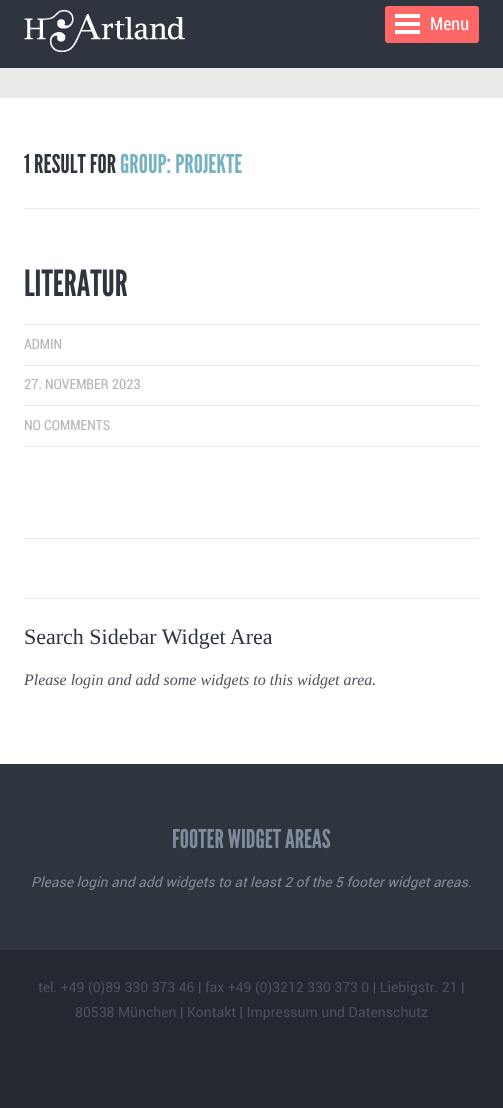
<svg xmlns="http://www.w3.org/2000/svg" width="503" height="1108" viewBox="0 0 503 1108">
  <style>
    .t1 { font: 18px Roboto; fill: #fff; }
    .t2 { font: 26px League Gothic; fill: #2f353f; }
    .t3 { font: 26px League Gothic; fill: #77b2c2; }
    .t4 { font: 36px League Gothic; fill: #2f353f; }
    .t5 { font: 14px Roboto; fill: #b2b8bd; }
    .t6 { font: 22px Liberation Serif; fill: #2f353f; }
    .t7 { font: italic 16px Liberation Serif; fill: #4b525d; }
    .t8 { font: 26px League Gothic; fill: #808b9c; }
    .t9 { font: italic 14px Roboto; fill: #808b9c; }
    .t10 { font: 14px 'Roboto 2'; fill: #4b525d; }
  </style>
  <rect width="100%" height="100%" fill="#242931"/>
  <rect x="0" y="0" width="503" height="68" fill="#2f353f"/>
  <image x="24" y="10" width="161" height="42" href="images/1.png"/>
  <rect x="385" y="6" width="94" height="37" rx="3" fill="#f66"/>
  <image x="395" y="14" width="25" height="20" href="images/2.png"/>
  <text x="430" y="30" class="t1">Menu</text>
  <rect x="0" y="68" width="503" height="30" fill="#eaeaea"/>
  <rect x="0" y="98" width="503" height="666" fill="#fff"/>
  <text x="24" y="173" class="t2">1 RESULT FOR</text>
  <text x="120" y="173" class="t3">GROUP: PROJEKTE</text>
  <rect x="24" y="208" width="455" height="1" fill="#eaeaea"/>
  <text x="24" y="296" class="t4">LITERATUR</text>
  <rect x="24" y="324" width="455" height="1" fill="#eaeaea"/>
  <text x="24" y="349" class="t5">ADMIN</text>
  <rect x="24" y="365" width="455" height="1" fill="#eaeaea"/>
  <text x="24" y="389" class="t5">27. NOVEMBER 2023</text>
  <rect x="24" y="405" width="455" height="1" fill="#eaeaea"/>
  <text x="24" y="430" class="t5">NO COMMENTS</text>
  <rect x="24" y="446" width="455" height="1" fill="#eaeaea"/>
  <rect x="24" y="538" width="455" height="1" fill="#eaeaea"/>
  <rect x="24" y="598" width="455" height="1" fill="#eaeaea"/>
  <text x="24" y="644" class="t6">Search Sidebar Widget Area</text>
  <text x="24" y="685" class="t7">Please login and add some widgets to this widget area.</text>
  <rect x="0" y="764" width="503" height="186" fill="#2f353f"/>
  <text x="172" y="848" class="t8">FOOTER WIDGET AREAS</text>
  <text x="31" y="887" class="t9">Please login and add widgets to at least 2 of the 5 footer widget areas.</text>
  <text x="38" y="992" class="t10">tel. +49 (0)89 330 373 46 | fax +49 (0)3212 330 373 0 | Liebigstr. 21 |</text>
  <text x="75" y="1017" class="t10">80538 München | Kontakt | Impressum und Datenschutz</text>
</svg>
